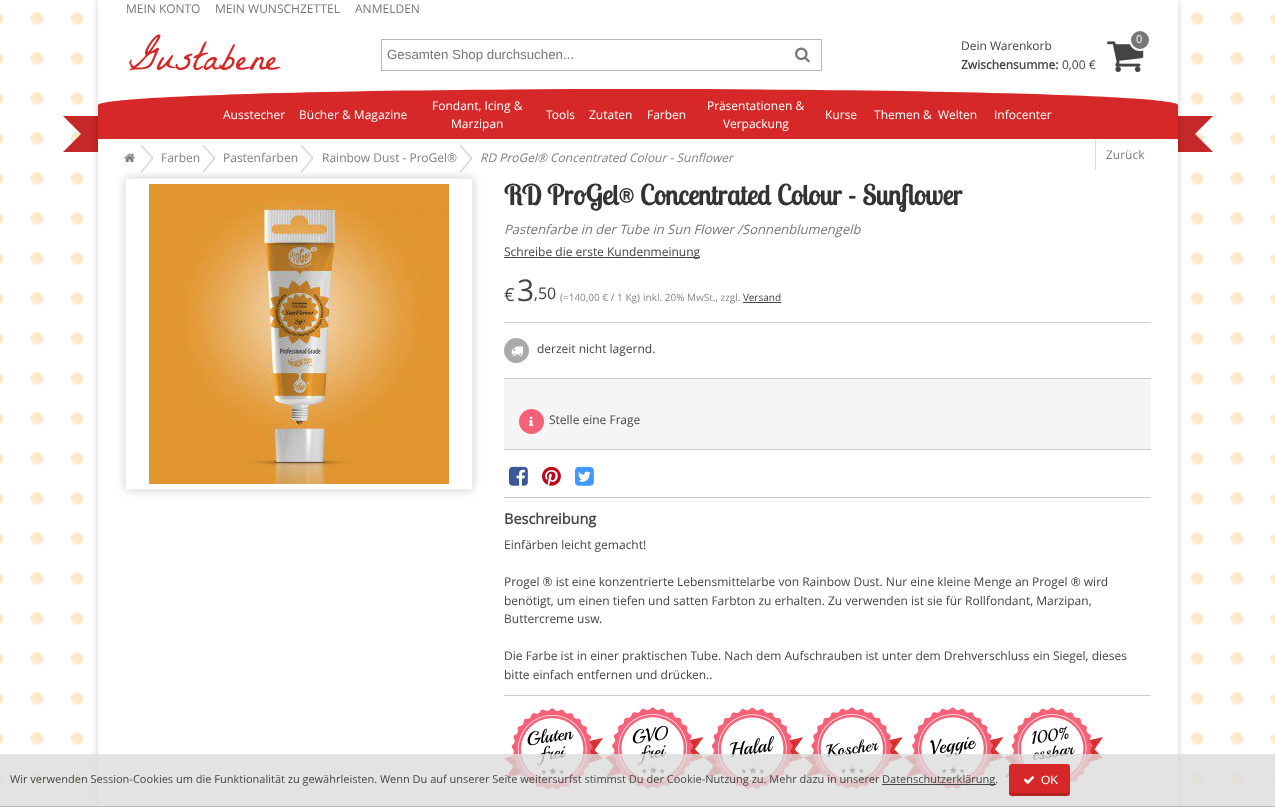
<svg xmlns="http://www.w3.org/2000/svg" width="1275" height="807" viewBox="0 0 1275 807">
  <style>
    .t1 { font: 12px Open Sans; fill: #777; }
    .t2 { font: 13.3px Liberation Sans; fill: #777; }
    .t3 { font: 12px Open Sans; fill: #444; }
    .t4 { font: bold 12px Open Sans; fill: #444; }
    .t5 { font: 11px Open Sans; fill: #fff; }
    .t6 { font: 12px Open Sans; fill: #fff; }
    .t7 { font: 12px Open Sans; fill: #7f7f7f; }
    .t8 { font: italic 12px Open Sans; fill: #7f7f7f; }
    .t9 { font: bold 27.6px Lobster Two; fill: #333; }
    .t10 { font: italic 13px Open Sans; fill: #777; }
    .t11 { font: 18px Open Sans; fill: #444; }
    .t12 { font: 30px Open Sans; fill: #444; }
    .t13 { font: 16px Open Sans; fill: #444; }
    .t14 { font: 10px Open Sans; fill: #878787; }
    .t15 { font: 10px Open Sans; fill: #444; }
    .t16 { font: bold 14.5px Open Sans; fill: #444; }
    .t17 { font: 11px Open Sans; fill: #444; }
    .t18 { font: 12px Liberation Sans; fill: #fff; }
  </style>
  <defs>
    <clipPath id="clip1"><path d="M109 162H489V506H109ZM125 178H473V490H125Z" clip-rule="evenodd"/></clipPath>
  </defs>
  <rect width="100%" height="100%" fill="#fff"/>
  <image x="0" y="12" width="1275" height="773" href="images/1.png"/>
  <path d="M63 116H109L91 134H81Z" fill="#c52828"/>
  <rect x="91" y="127" width="7" height="14" fill="#c52828"/>
  <path d="M109 152H63L81 134H91Z" fill="#c52828"/>
  <path d="M1167 116H1213L1195 134H1185ZM1213 152H1167L1185 134H1195Z" fill="#c52828"/>
  <rect x="1178" y="127" width="7" height="14" fill="#c52828"/>
  <rect x="98" y="0" width="1080" height="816" fill="#00000033" filter="blur(3px)"/>
  <rect x="98" y="0" width="1080" height="806" fill="#fff"/>
  <text x="126" y="13" class="t1">MEIN KONTO</text>
  <text x="215" y="13" class="t1">MEIN WUNSCHZETTEL</text>
  <text x="355" y="13" class="t1">ANMELDEN</text>
  <image x="129" y="34" width="152" height="37" href="images/2.png"/>
  <rect x="381.5" y="39.5" width="440" height="31" fill="none" stroke="#b6b6b6"/>
  <text x="387" y="59" class="t2">Gesamten Shop durchsuchen...</text>
  <image x="795" y="47" width="15" height="16" href="images/3.png"/>
  <text x="961" y="50" class="t3">Dein Warenkorb</text>
  <text x="961" y="69" class="t4">Zwischensumme:</text>
  <text x="1062" y="69" class="t3">0,00 €</text>
  <image x="1107" y="41" width="37" height="32" href="images/4.png"/>
  <circle cx="1140" cy="40" r="10" fill="#777" stroke="#fff" stroke-width="2"/>
  <text x="1136" y="43" class="t5">0</text>
  <path d="M638 89C936 89 1178 96 1178 105V139H98V105C98 96 340 89 638 89Z" fill="#d62828"/>
  <text x="223" y="119" class="t6">Ausstecher</text>
  <text x="299" y="119" class="t6">Bücher &amp; Magazine</text>
  <text x="432" y="110" class="t6">Fondant, Icing &amp;</text>
  <text x="451" y="128" class="t6">Marzipan</text>
  <text x="546" y="119" class="t6">Tools</text>
  <text x="589" y="119" class="t6">Zutaten</text>
  <text x="647" y="119" class="t6">Farben</text>
  <text x="707" y="110" class="t6">Präsentationen &amp;</text>
  <text x="723" y="128" class="t6">Verpackung</text>
  <text x="825" y="119" class="t6">Kurse</text>
  <text x="874" y="119" class="t6" xml:space="preserve">Themen &amp;  Welten</text>
  <text x="994" y="119" class="t6">Infocenter</text>
  <image x="141" y="145" width="12" height="28" href="images/5.png"/>
  <image x="124" y="153" width="11" height="10" href="images/6.png"/>
  <image x="203" y="145" width="12" height="28" href="images/5.png"/>
  <text x="161" y="162" class="t7">Farben</text>
  <image x="301" y="145" width="12" height="28" href="images/5.png"/>
  <text x="223" y="162" class="t7">Pastenfarben</text>
  <image x="460" y="145" width="12" height="28" href="images/5.png"/>
  <text x="322" y="162" class="t7">Rainbow Dust - ProGel®</text>
  <text x="480" y="162" class="t8">RD ProGel® Concentrated Colour - Sunflower</text>
  <rect x="1095" y="139" width="1" height="31" fill="#ddd"/>
  <text x="1106" y="159" class="t7">Zurück</text>
  <g clip-path="url(#clip1)">
    <rect x="125" y="178" width="348" height="312" fill="#ccc" filter="blur(5px)"/>
  </g>
  <rect x="125.5" y="178.5" width="347" height="311" fill="none" stroke="#eee"/>
  <image x="149" y="184" width="300" height="300" href="images/7.png"/>
  <text x="504" y="205" class="t9">RD ProGel® Concentrated Colour - Sunflower</text>
  <text x="504" y="234" class="t10">Pastenfarbe in der Tube in Sun Flower /Sonnenblumengelb</text>
  <rect x="504" y="257" width="196" height="1" fill="#444"/>
  <text x="504" y="256" class="t3">Schreibe die erste Kundenmeinung</text>
  <text x="504" y="301" class="t11">€</text>
  <text x="517" y="301" class="t12">3</text>
  <text x="534" y="299" class="t13">,50</text>
  <text x="560" y="301" class="t14">(=140,00 € / 1 Kg)</text>
  <text x="643" y="301" class="t14">inkl. 20% MwSt., zzgl.</text>
  <text x="743" y="301" class="t15">Versand</text>
  <rect x="743" y="302" width="38" height="1" fill="#444"/>
  <rect x="504" y="322" width="647" height="1" fill="#ccc"/>
  <circle cx="516.5" cy="350.5" r="12.5" fill="#aaa"/>
  <image x="511" y="346" width="12" height="10" href="images/8.png"/>
  <text x="537" y="353" class="t3">derzeit nicht lagernd.</text>
  <rect x="504" y="379" width="647" height="70" fill="#f5f5f5"/>
  <rect x="504" y="378" width="647" height="1" fill="#ccc"/>
  <rect x="504" y="449" width="647" height="1" fill="#ccc"/>
  <circle cx="531.5" cy="421.5" r="12.5" fill="#f66178"/>
  <image x="529" y="416" width="5" height="11" href="images/9.png"/>
  <text x="549" y="424" class="t3">Stelle eine Frage</text>
  <image x="509" y="466" width="19" height="20" href="images/10.png"/>
  <image x="542" y="466" width="19" height="20" href="images/11.png"/>
  <image x="575" y="466" width="19" height="20" href="images/12.png"/>
  <rect x="504" y="497" width="647" height="1" fill="#ccc"/>
  <text x="504" y="524" class="t16">Beschreibung</text>
  <text x="504" y="549" class="t3">Einfärben leicht gemacht!</text>
  <text x="504" y="586" class="t3">Progel ® ist eine konzentrierte Lebensmittelarbe von Rainbow Dust. Nur eine kleine Menge an Progel ® wird</text>
  <text x="504" y="605" class="t3">benötigt, um einen tiefen und satten Farbton zu erhalten. Zu verwenden ist sie für Rollfondant, Marzipan,</text>
  <text x="504" y="623" class="t3">Buttercreme usw.</text>
  <text x="504" y="660" class="t3">Die Farbe ist in einer praktischen Tube. Nach dem Aufschrauben ist unter dem Drehverschluss ein Siegel, dieses</text>
  <text x="504" y="679" class="t3">bitte einfach entfernen und drücken..</text>
  <rect x="504" y="695" width="647" height="1" fill="#ccc"/>
  <image x="504" y="708" width="99" height="82" href="images/13.png"/>
  <image x="604" y="707" width="100" height="82" href="images/14.png"/>
  <image x="704" y="707" width="99" height="82" href="images/15.png"/>
  <image x="804" y="707" width="99" height="82" href="images/16.png"/>
  <image x="904" y="707" width="100" height="82" href="images/17.png"/>
  <image x="1004" y="707" width="99" height="82" href="images/18.png"/>
  <rect x="0" y="754" width="1275" height="52" fill="#dcdcdccc"/>
  <rect x="0" y="806" width="1275" height="1" fill="#bbb"/>
  <text x="10" y="783" class="t17">Wir verwenden Session-Cookies um die Funktionalität zu gewährleisten. Wenn Du auf unserer Seite weitersurfst stimmst Du der Cookie-Nutzung zu. Mehr dazu in unserer</text>
  <rect x="882" y="784" width="114" height="1" fill="#444"/>
  <text x="882" y="783" class="t17">Datenschutzerklärung.</text>
  <rect x="1009" y="764" width="61" height="32" rx="3" fill="#d62828"/>
  <path d="M1009 790C1009 798 1012 796 1021 796H1058C1067 796 1070 798 1070 790C1070 792 1069 793 1067 793H1012C1010 793 1009 792 1009 790Z" fill="#00000026"/>
  <image x="1023" y="776" width="12" height="8" href="images/19.png"/>
  <text x="1041" y="784" class="t18">OK</text>
</svg>
